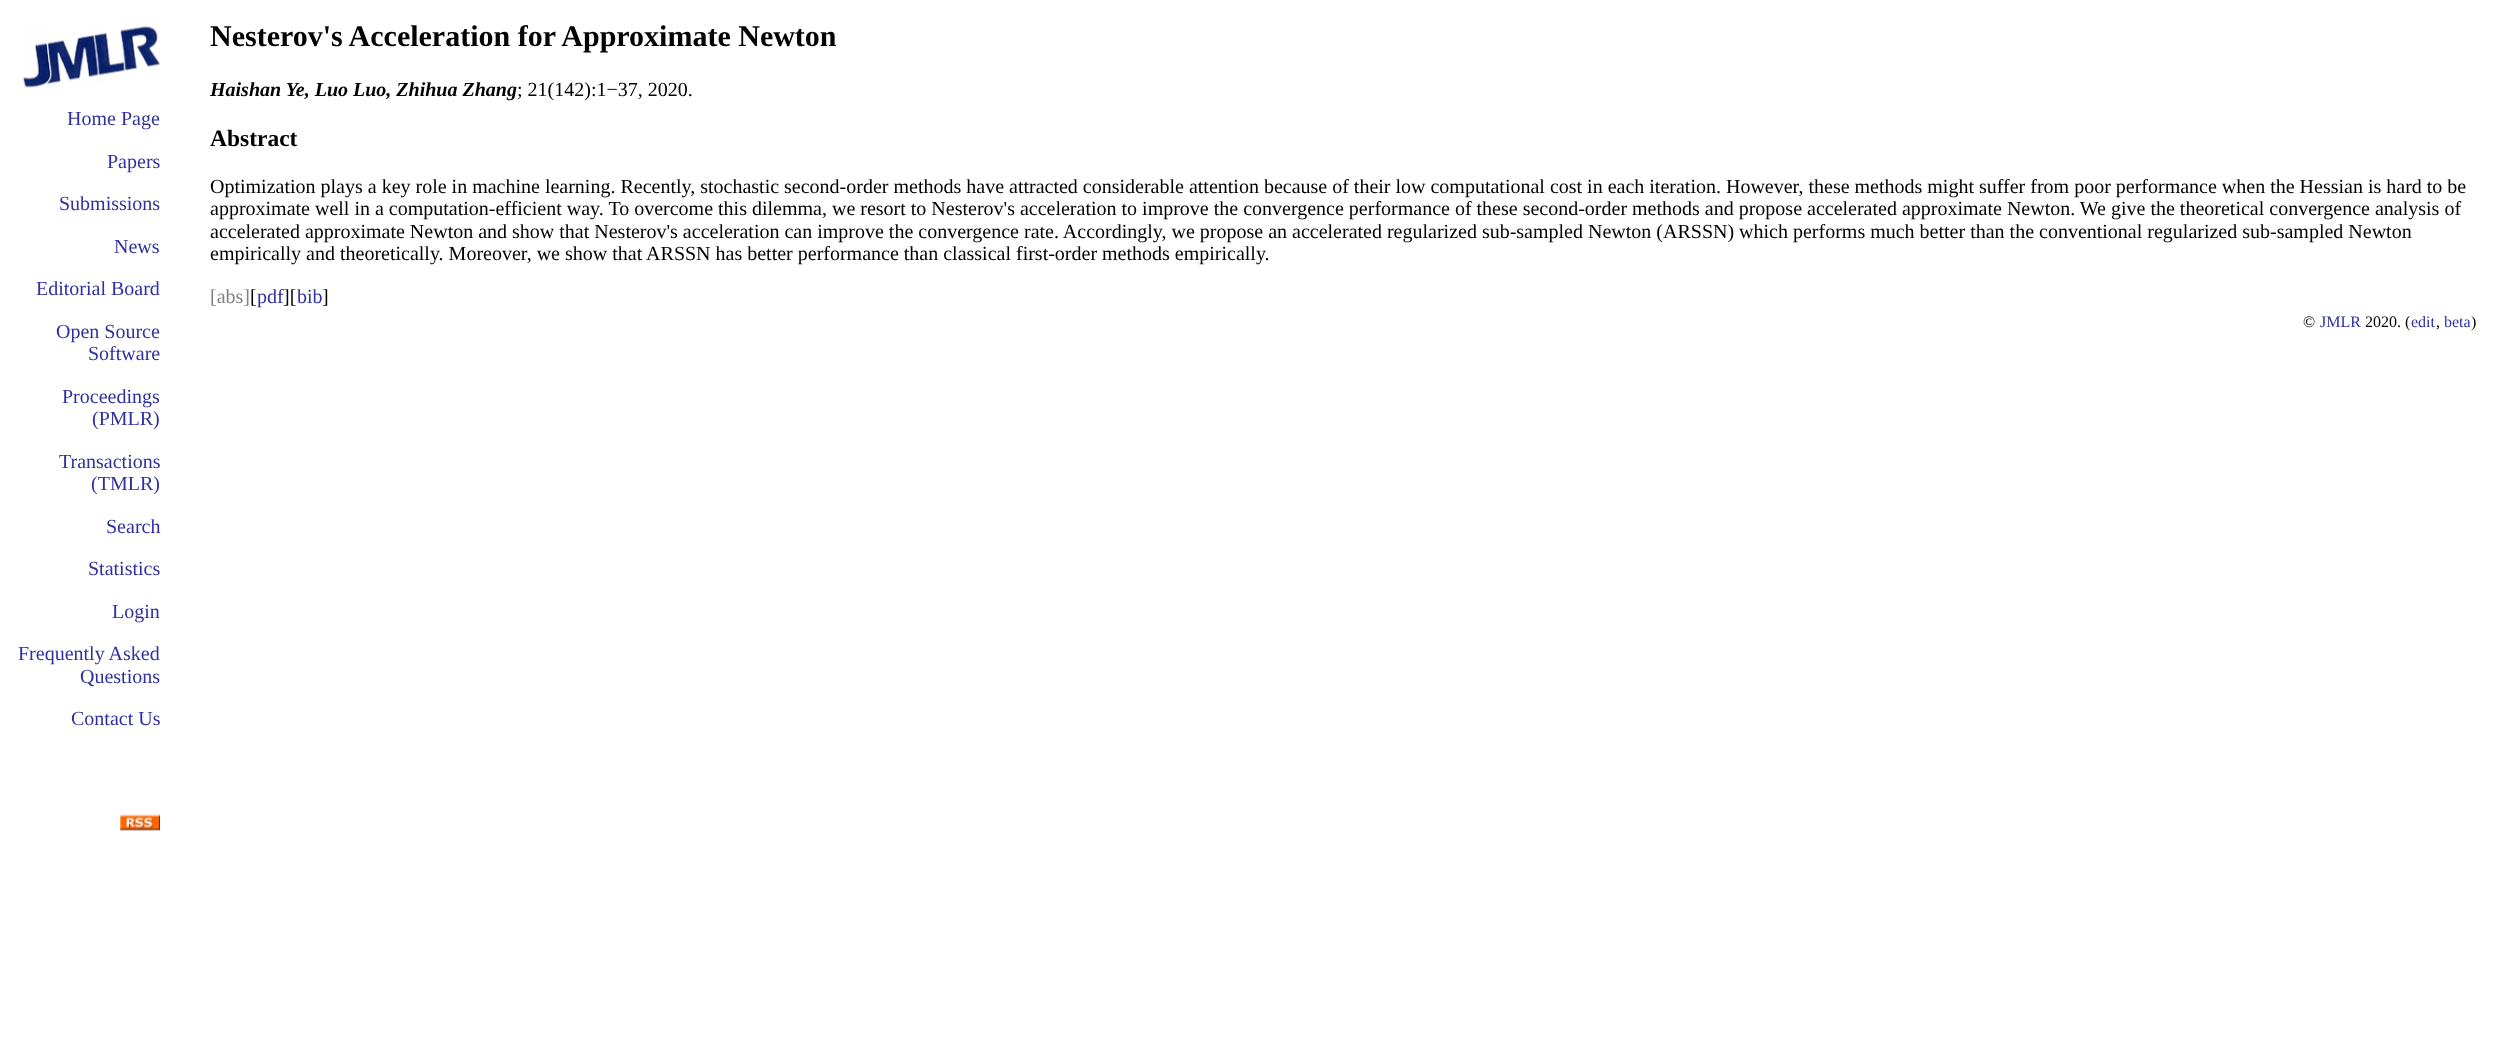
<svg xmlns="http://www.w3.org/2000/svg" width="2499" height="1062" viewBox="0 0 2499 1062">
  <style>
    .t1 { font: 20px Liberation Serif; fill: #3030a0; }
    .t2 { font: bold 30px Liberation Serif; fill: #000; }
    .t3 { font: italic bold 20px Liberation Serif; fill: #000; }
    .t4 { font: 20px Liberation Serif; fill: #000; }
    .t5 { font: bold 23.5px Liberation Serif; fill: #000; }
    .t6 { font: 20px Liberation Serif; fill: #808080; }
    .t7 { font: 16px Liberation Serif; fill: #000; }
    .t8 { font: 16px Liberation Serif; fill: #3030a0; }
  </style>
  <rect width="100%" height="100%" fill="#fff"/>
  <image x="23" y="26" width="137" height="62" href="images/1.png"/>
  <text x="67" y="125" class="t1">Home Page</text>
  <text x="107" y="168" class="t1">Papers</text>
  <text x="59" y="210" class="t1">Submissions</text>
  <text x="114" y="253" class="t1">News</text>
  <text x="36" y="295" class="t1">Editorial Board</text>
  <text x="56" y="338" class="t1">Open Source</text>
  <text x="88" y="360" class="t1">Software</text>
  <text x="62" y="403" class="t1">Proceedings</text>
  <text x="92" y="425" class="t1">(PMLR)</text>
  <text x="59" y="468" class="t1">Transactions</text>
  <text x="91" y="490" class="t1">(TMLR)</text>
  <text x="106" y="533" class="t1">Search</text>
  <text x="88" y="575" class="t1">Statistics</text>
  <text x="112" y="618" class="t1">Login</text>
  <text x="18" y="660" class="t1">Frequently Asked</text>
  <text x="80" y="683" class="t1">Questions</text>
  <text x="71" y="725" class="t1">Contact Us</text>
  <image x="120" y="814" width="40" height="17" href="images/2.png"/>
  <text x="210" y="46" class="t2">Nesterov's Acceleration for Approximate Newton</text>
  <text x="210" y="96" class="t3">Haishan Ye, Luo Luo, Zhihua Zhang</text>
  <text x="517" y="96" class="t4">; 21(142):1−37, 2020.</text>
  <text x="210" y="146" class="t5">Abstract</text>
  <text x="210" y="193" class="t4">Optimization plays a key role in machine learning. Recently, stochastic second-order methods have attracted considerable attention because of their low computational cost in each iteration. However, these methods might suffer from poor performance when the Hessian is hard to be</text>
  <text x="210" y="215" class="t4">approximate well in a computation-efficient way. To overcome this dilemma, we resort to Nesterov's acceleration to improve the convergence performance of these second-order methods and propose accelerated approximate Newton. We give the theoretical convergence analysis of</text>
  <text x="210" y="238" class="t4">accelerated approximate Newton and show that Nesterov's acceleration can improve the convergence rate. Accordingly, we propose an accelerated regularized sub-sampled Newton (ARSSN) which performs much better than the conventional regularized sub-sampled Newton</text>
  <text x="210" y="260" class="t4">empirically and theoretically. Moreover, we show that ARSSN has better performance than classical first-order methods empirically.</text>
  <text x="210" y="303" class="t6">[abs]</text>
  <text x="250" y="303" class="t4">[</text>
  <text x="257" y="303" class="t1">pdf</text>
  <text x="283" y="303" class="t4">][</text>
  <text x="297" y="303" class="t1">bib</text>
  <text x="322" y="303" class="t4">]</text>
  <text x="2303" y="327" class="t7">©</text>
  <text x="2320" y="327" class="t8">JMLR</text>
  <text x="2365" y="327" class="t7">2020. (</text>
  <text x="2411" y="327" class="t8">edit</text>
  <text x="2436" y="327" class="t7">,</text>
  <text x="2444" y="327" class="t8">beta</text>
  <text x="2471" y="327" class="t7">)</text>
</svg>
